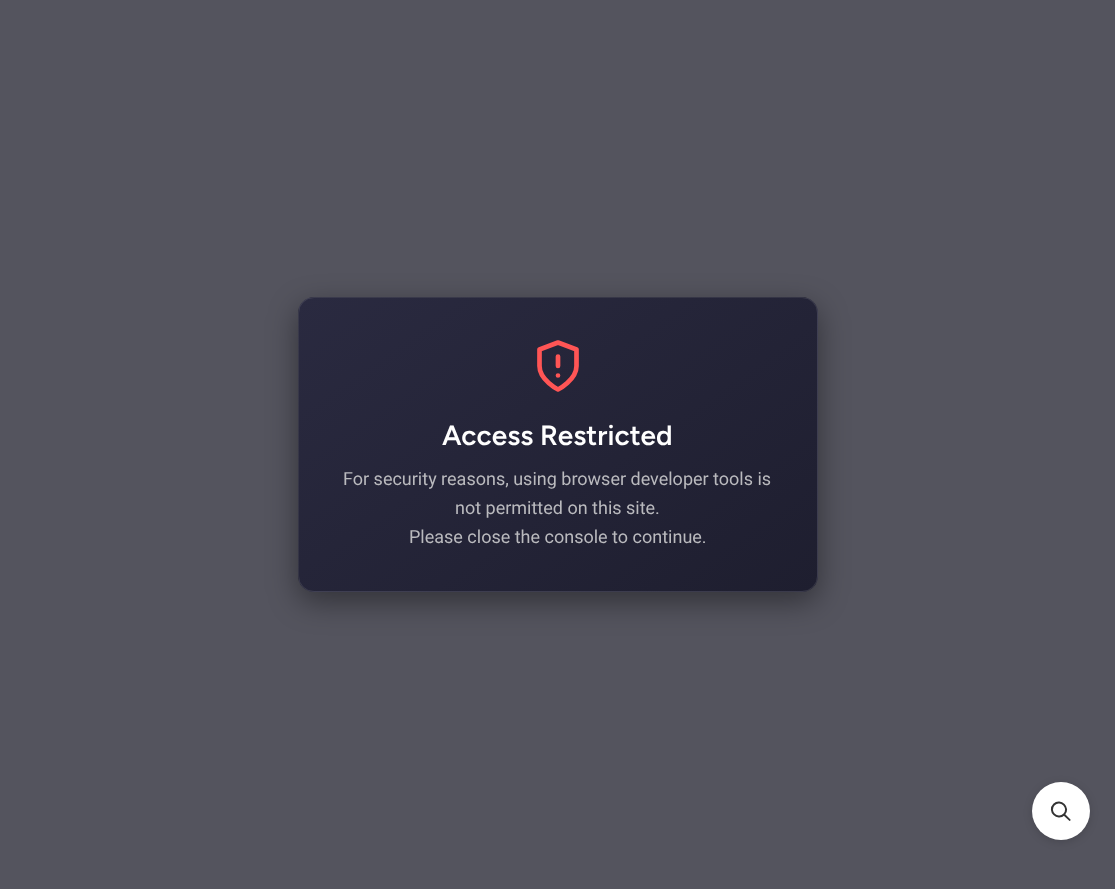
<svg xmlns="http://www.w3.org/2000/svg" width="1115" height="889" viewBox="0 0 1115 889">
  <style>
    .t1 { font: 600 28px Figtree; fill: #fff; }
    .t2 { font: 18px Roboto; fill: #bababe; }
  </style>
  <defs>
    <clipPath id="clip1"><rect x="298" y="297" width="520" height="295" rx="16"/></clipPath>
    <linearGradient id="g1" gradientUnits="userSpaceOnUse" x1="404" y1="-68" x2="712" y2="371"><stop offset="0" stop-color="#2a2a40"/><stop offset="1" stop-color="#1e1e2f"/></linearGradient>
    <linearGradient id="g2" gradientUnits="userSpaceOnUse" x1="-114" y1="225" x2="194" y2="664"><stop offset="0" stop-color="#2a2a40"/><stop offset="1" stop-color="#1e1e2f"/></linearGradient>
    <linearGradient id="g3" gradientUnits="userSpaceOnUse" x1="404" y1="225" x2="712" y2="664"><stop offset="0" stop-color="#2a2a40"/><stop offset="1" stop-color="#1e1e2f"/></linearGradient>
    <linearGradient id="g4" gradientUnits="userSpaceOnUse" x1="922" y1="225" x2="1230" y2="664"><stop offset="0" stop-color="#2a2a40"/><stop offset="1" stop-color="#1e1e2f"/></linearGradient>
    <linearGradient id="g5" gradientUnits="userSpaceOnUse" x1="404" y1="518" x2="712" y2="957"><stop offset="0" stop-color="#2a2a40"/><stop offset="1" stop-color="#1e1e2f"/></linearGradient>
  </defs>
  <rect width="100%" height="100%" fill="#54545e"/>
  <rect x="298" y="307" width="520" height="295" rx="16" fill="#00000066" filter="blur(15px)"/>
  <g clip-path="url(#clip1)">
    <rect x="308" y="297" width="500" height="1" fill="url(#g1)"/>
    <rect x="298" y="307" width="1" height="275" fill="url(#g2)"/>
    <rect x="299" y="298" width="518" height="293" fill="url(#g3)"/>
    <rect x="817" y="307" width="1" height="275" fill="url(#g4)"/>
    <rect x="308" y="591" width="500" height="1" fill="url(#g5)"/>
  </g>
  <rect x="298.5" y="297.5" width="519" height="294" rx="15.5" fill="none" stroke="#ffffff1a"/>
  <path d="M558 389.5C558 389.5 576.5 380 576.5 366V349.5L558 342.5L539.5 349.5V366C539.5 380 558 389.5 558 389.5ZM558 356.5V366M558 375.5H558" fill="none" stroke="#f55" stroke-width="4.7" stroke-linecap="round" stroke-linejoin="round"/>
  <text x="442" y="445" class="t1">Access Restricted</text>
  <text x="343" y="485" class="t2">For security reasons, using browser developer tools is</text>
  <text x="455" y="514" class="t2">not permitted on this site.</text>
  <text x="409" y="543" class="t2">Please close the console to continue.</text>
  <rect x="1032" y="784" width="58" height="58" rx="29" fill="#00000026" filter="blur(4px)"/>
  <circle cx="1061" cy="811" r="29" fill="#fff"/>
  <path d="M1054 804.5C1060.5 798 1070.5 808 1064 814.5C1057.5 821 1047.5 811 1054 804.5Z" fill="none" stroke="#333" stroke-width="2"/>
  <path d="M1063 815L1064.5 813.5L1070.5 819.5C1071 820.5 1069.5 821.5 1069 820.5Z" fill="#333"/>
</svg>
